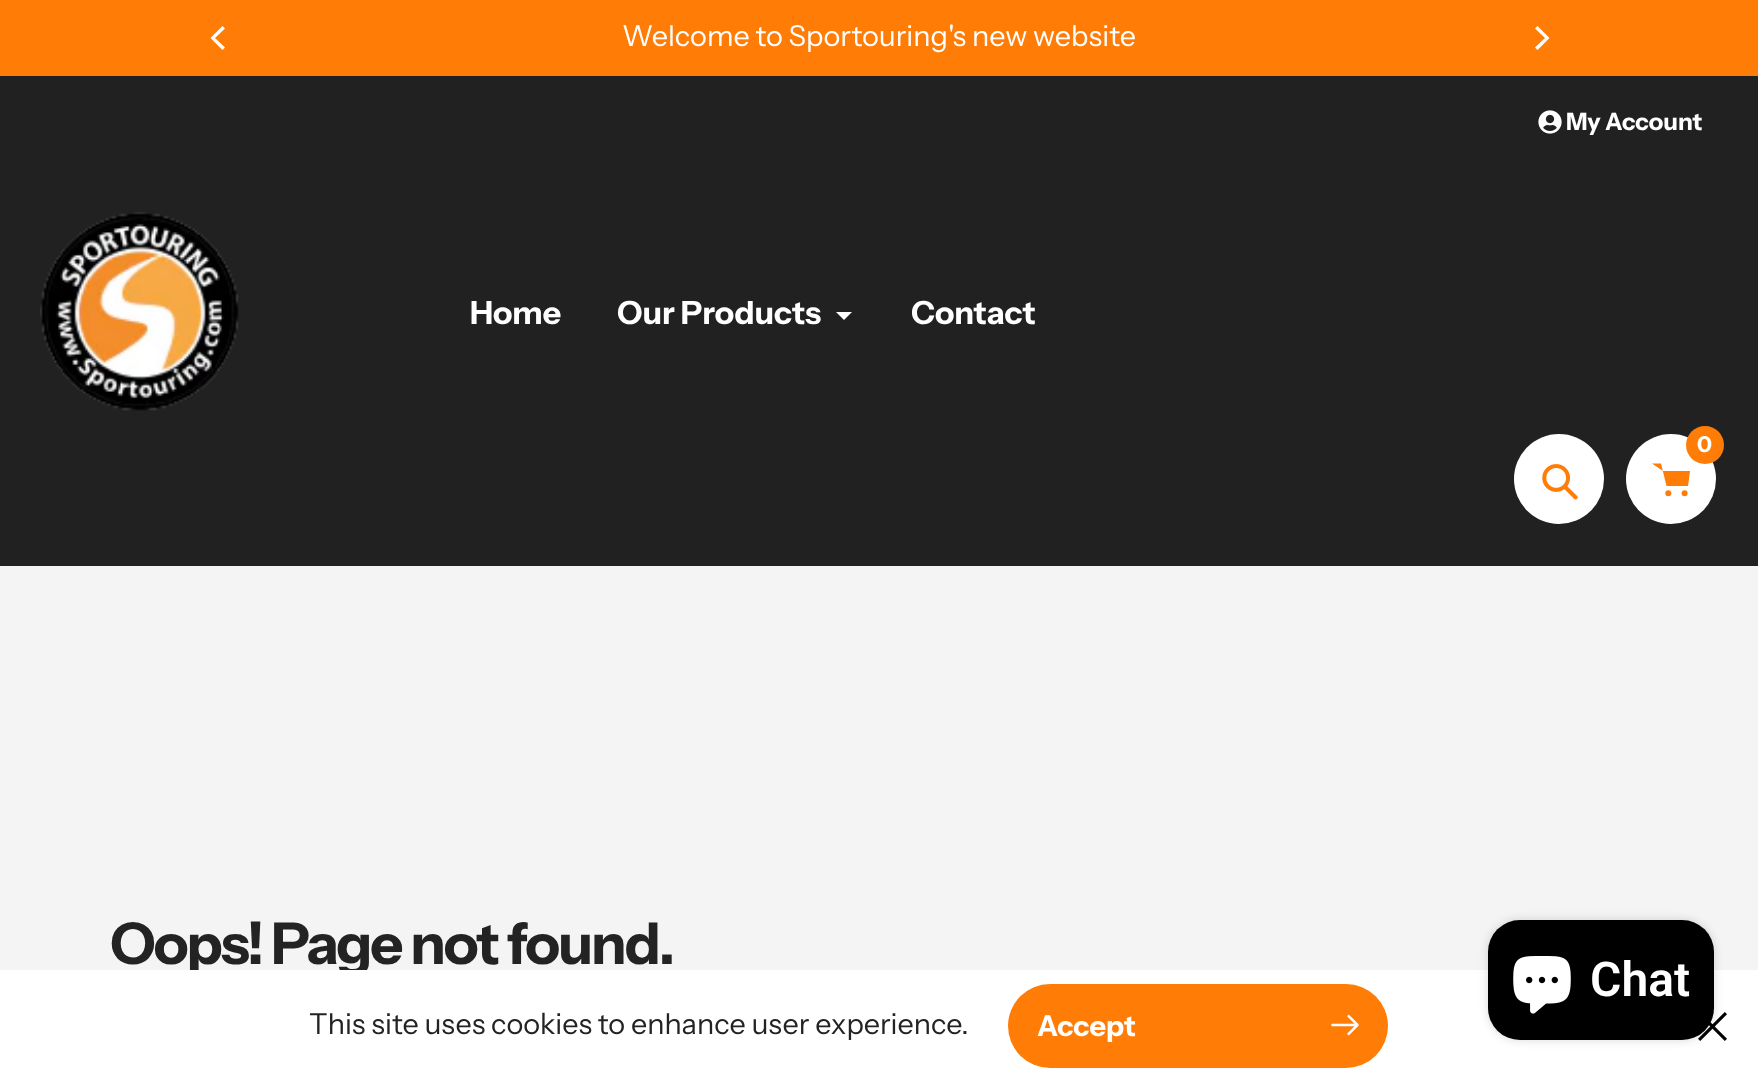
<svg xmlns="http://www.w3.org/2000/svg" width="1758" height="1081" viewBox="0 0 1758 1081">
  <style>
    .t1 { font: 28.8px Instrument Sans; fill: #fff; }
    .t2 { font: bold 24px Instrument Sans; fill: #fff; }
    .t3 { font: bold 32px Instrument Sans; fill: #fff; }
    .t4 { font: bold 22px Instrument Sans; fill: #fff; }
    .t5 { font: bold 57.5px Instrument Sans; letter-spacing: -2px; fill: #232323; }
    .t6 { font: 600 48px Roboto; fill: #fff; }
    .t7 { font: 28.8px Instrument Sans; fill: #232323; }
    .t8 { font: bold 28.8px Instrument Sans; fill: #fff; }
  </style>
  <rect width="100%" height="100%" fill="#f4f4f4"/>
  <rect x="0" y="0" width="1758" height="76" fill="#ff7d06"/>
  <path d="M210.5 38L222.5 50L225 47.5L215 38L225 28.5L222.5 26Z" fill="#fff"/>
  <text x="622" y="46" class="t1">Welcome to Sportouring's new website</text>
  <path d="M1549.5 38L1537.5 26L1535 28.5L1545 38L1535 47.5L1537.5 50Z" fill="#fff"/>
  <rect x="0" y="76" width="1758" height="490" fill="#212121"/>
  <image x="1538" y="110" width="24" height="24" href="images/1.png"/>
  <text x="1566" y="130" class="t2">My Account</text>
  <image x="40" y="212" width="199" height="199" href="images/2.png"/>
  <text x="470" y="324" class="t3">Home</text>
  <text x="617" y="324" class="t3">Our Products</text>
  <path d="M852 312L844 320L836 312" fill="#fff"/>
  <text x="911" y="324" class="t3">Contact</text>
  <circle cx="1559" cy="479" r="45" fill="#fff"/>
  <image x="1542" y="464" width="36" height="36" href="images/3.png"/>
  <circle cx="1671" cy="479" r="45" fill="#fff"/>
  <path d="M1663 471H1690L1688 486H1666.5L1661 463.5H1652" fill="#ff7d06" fill-rule="evenodd"/>
  <circle cx="1705" cy="445" r="19" fill="#ff7d06"/>
  <text x="1697" y="452" class="t4">0</text>
  <circle cx="1668.3" cy="493.3" r="3" fill="#ff7d06"/>
  <circle cx="1684.6" cy="493.3" r="3" fill="#ff7d06"/>
  <text x="110" y="964" class="t5">Oops! Page not found.</text>
  <rect x="0" y="970" width="1758" height="111" fill="#fff"/>
  <image x="1698" y="1012" width="29" height="29" href="images/6.png"/>
  <rect x="1488" y="920" width="226" height="120" rx="32" fill="#00000026" filter="blur(5px)"/>
  <rect x="1488" y="920" width="226" height="120" rx="32" fill="#000"/>
  <image x="1513" y="956" width="58" height="58" href="images/4.png"/>
  <text x="1590" y="996" class="t6">Chat</text>
  <text x="309" y="1034" class="t7">This site uses cookies to enhance user experience.</text>
  <rect x="1008" y="984" width="380" height="84" rx="42" fill="#ff7d06"/>
  <text x="1037" y="1036" class="t8">Accept</text>
  <image x="1331" y="1014" width="28" height="22" href="images/5.png"/>
</svg>
